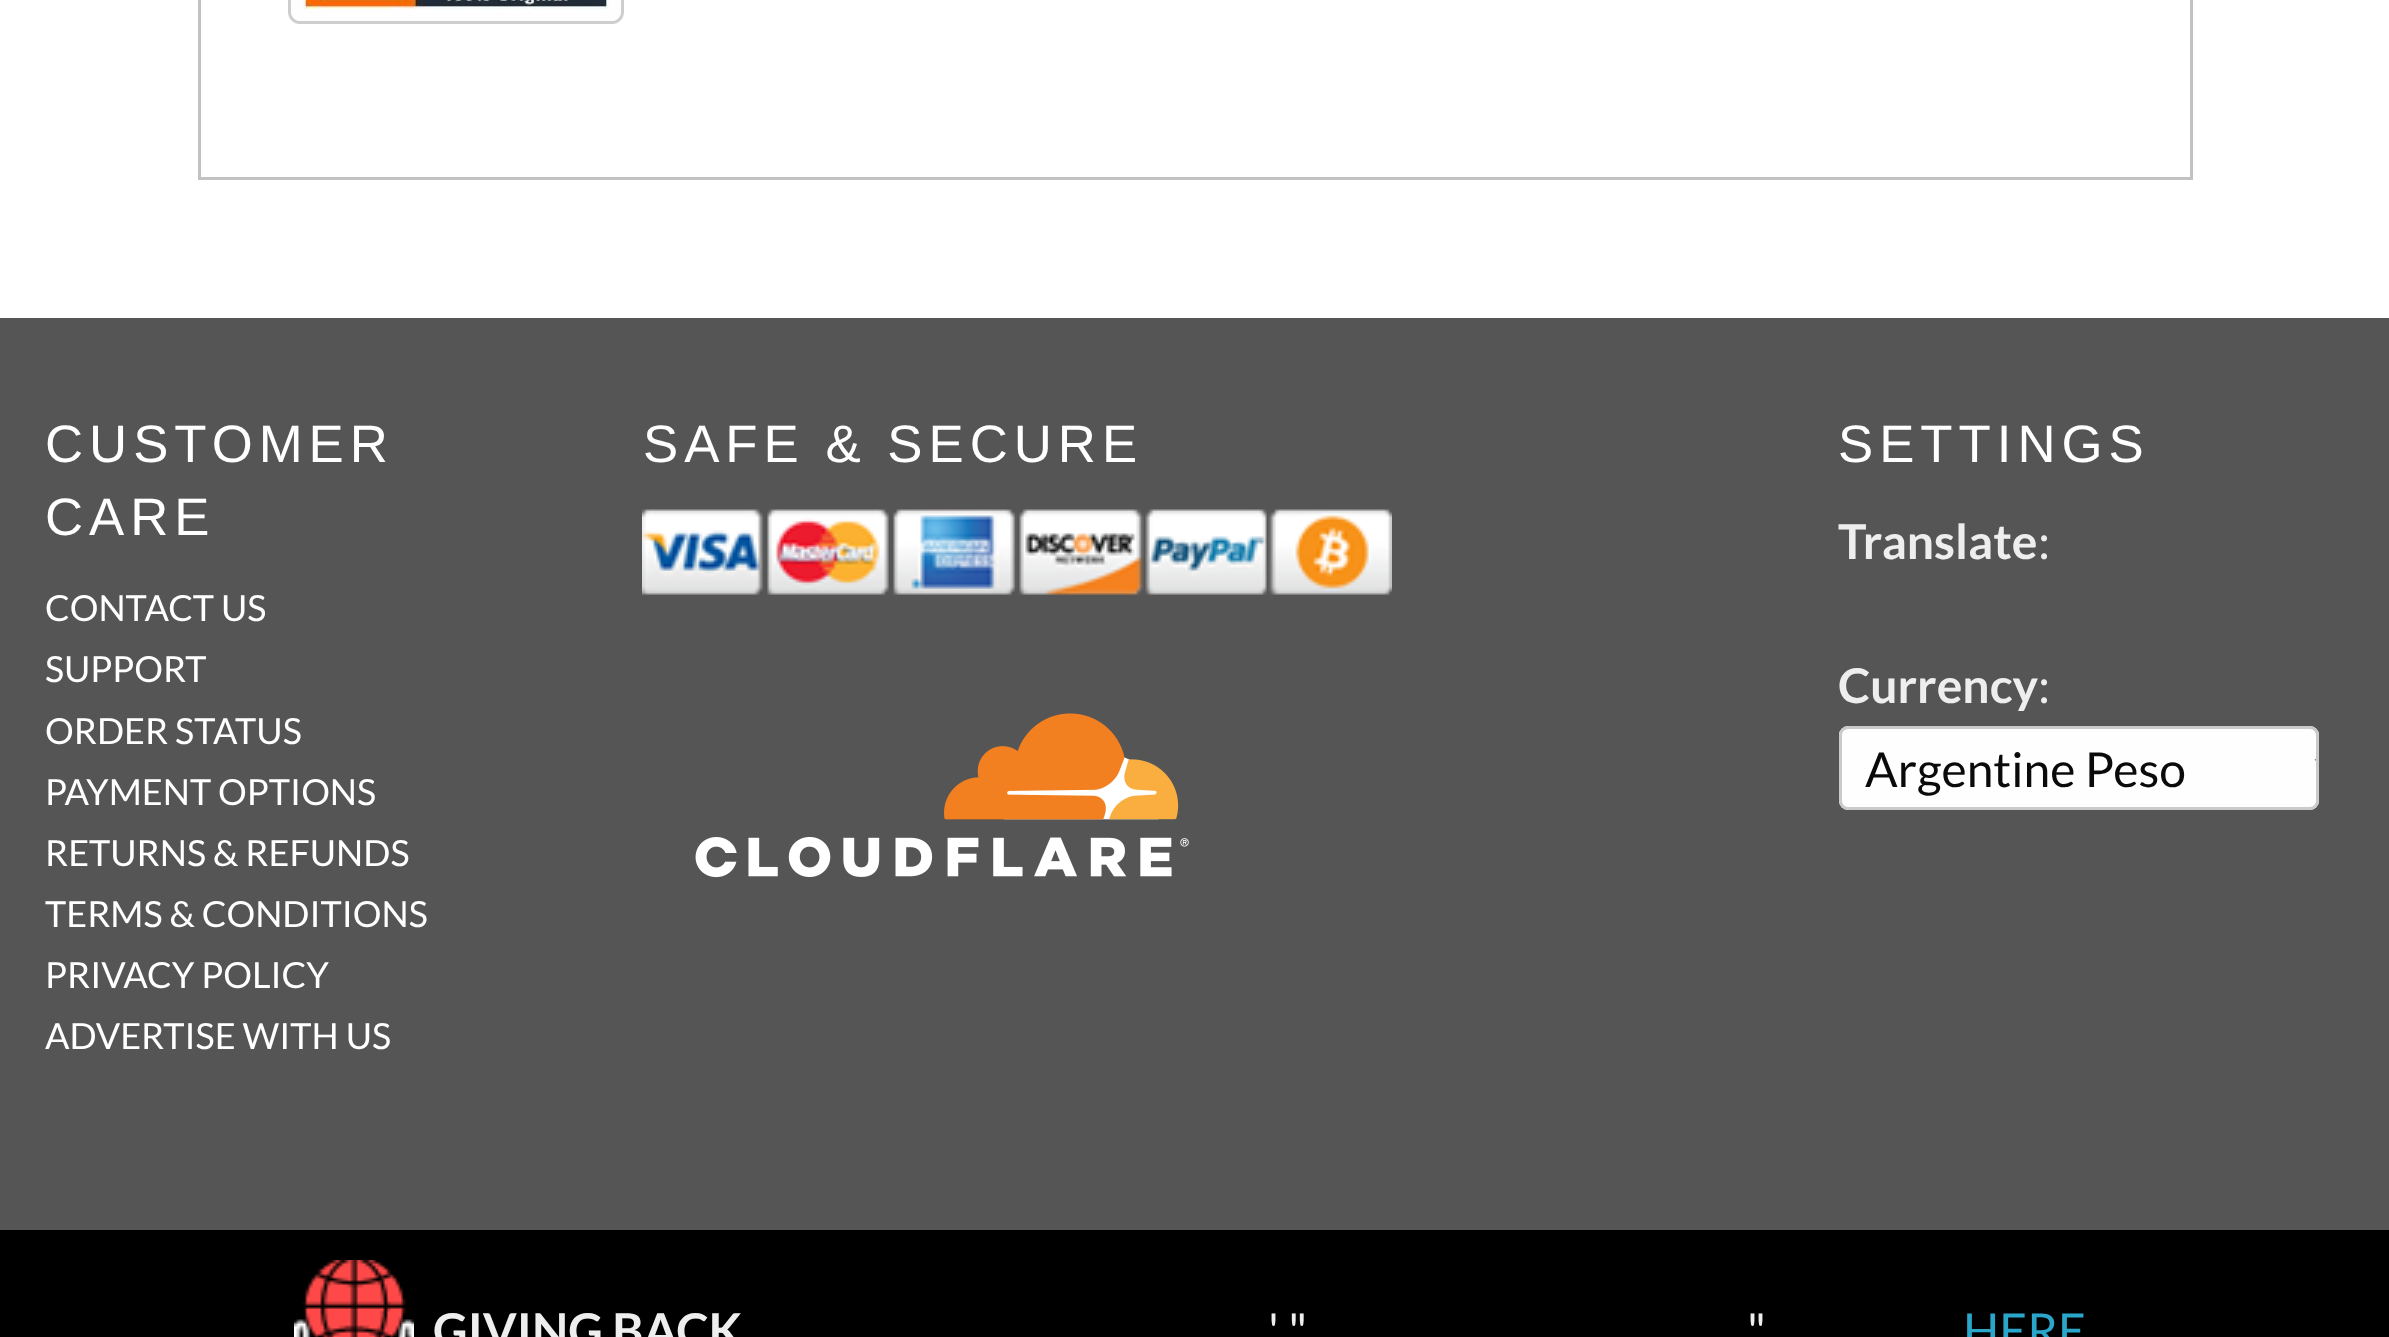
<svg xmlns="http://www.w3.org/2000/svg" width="2389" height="1337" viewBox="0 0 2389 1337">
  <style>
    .t1 { font: 52.75px Liberation Sans; letter-spacing: 6px; fill: #fff; }
    .t2 { font: 36px Lato; fill: #fff; }
    .t3 { font: bold 48px Lato; fill: #eee; }
    .t4 { font: 48px Lato; fill: #eee; }
    .t5 { font: 48px Lato; fill: #0a0a0a; }
    .t6 { font: 48px Lato; fill: #2ba6cb; }
  </style>
  <rect width="100%" height="100%" fill="#fff"/>
  <rect x="199.5" y="-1.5" width="1992" height="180" fill="none" stroke="#c2c2c2" stroke-width="3"/>
  <rect x="289.5" y="-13.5" width="333" height="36" rx="10.5" fill="none" stroke="#cecece" stroke-width="3"/>
  <rect x="297" y="-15" width="318" height="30" rx="3" fill="none" stroke="#fefefe" stroke-width="12"/>
  <image x="303" y="0" width="306" height="9" href="images/1.png"/>
  <rect x="0" y="318" width="2389" height="912" fill="#555"/>
  <text x="45" y="462" class="t1">CUSTOMER</text>
  <text x="45" y="535" class="t1">CARE</text>
  <text x="45" y="621" class="t2">CONTACT US</text>
  <text x="45" y="682" class="t2">SUPPORT</text>
  <text x="45" y="744" class="t2">ORDER STATUS</text>
  <text x="45" y="805" class="t2">PAYMENT OPTIONS</text>
  <text x="45" y="866" class="t2">RETURNS &amp; REFUNDS</text>
  <text x="45" y="927" class="t2">TERMS &amp; CONDITIONS</text>
  <text x="45" y="988" class="t2">PRIVACY POLICY</text>
  <text x="45" y="1049" class="t2">ADVERTISE WITH US</text>
  <text x="643" y="462" class="t1">SAFE &amp; SECURE</text>
  <image x="642" y="509" width="750" height="86" href="images/2.png"/>
  <image x="695" y="713" width="494" height="165" href="images/3.png"/>
  <text x="1838" y="462" class="t1">SETTINGS</text>
  <text x="1838" y="559" class="t3">Translate</text>
  <text x="2038" y="559" class="t4">:</text>
  <text x="1838" y="703" class="t3">Currency</text>
  <text x="2038" y="703" class="t4">:</text>
  <rect x="1839" y="726" width="480" height="84" rx="9" fill="#fefefe"/>
  <path d="M2314.5 759H2319V766Z" fill="#8a8a8a"/>
  <rect x="1840.5" y="727.5" width="477" height="81" rx="7.5" fill="none" stroke="#cacaca" stroke-width="3"/>
  <text x="1865" y="787" class="t5">Argentine Peso</text>
  <rect x="0" y="1230" width="2389" height="107" fill="#000"/>
  <image x="294" y="1260" width="120" height="77" href="images/4.png"/>
  <text x="433" y="1348" class="t3">GIVING BACK</text>
  <text x="1268" y="1348" class="t4">' "</text>
  <text x="1747" y="1348" class="t4">"</text>
  <text x="1963" y="1348" class="t6">HERE</text>
</svg>
